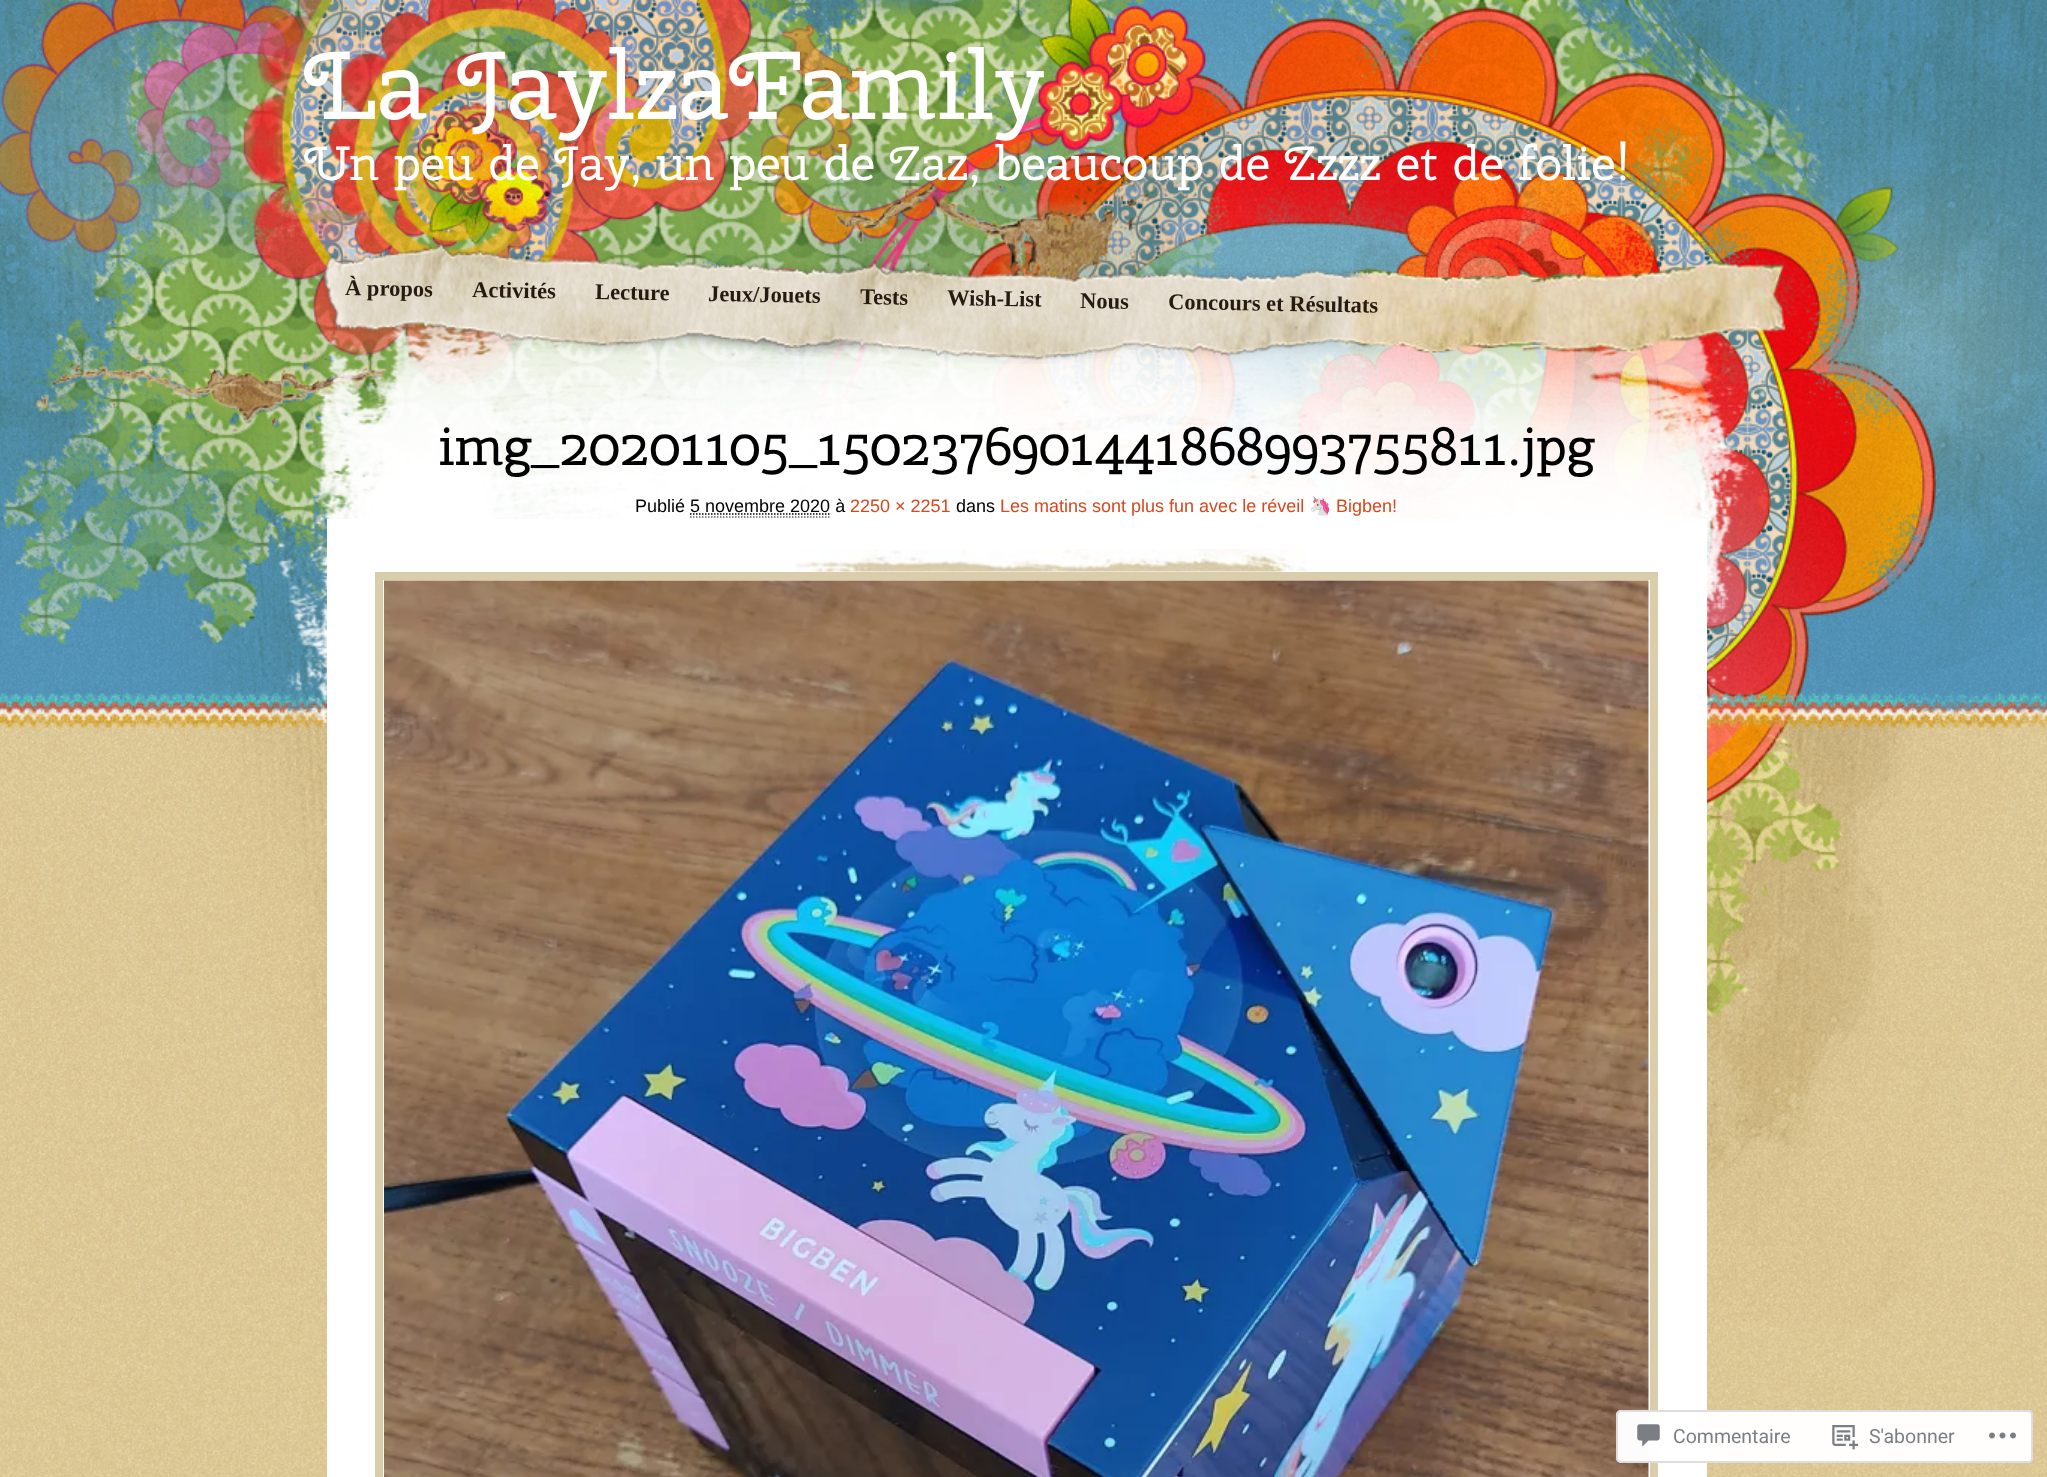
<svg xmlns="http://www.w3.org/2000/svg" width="2047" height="1477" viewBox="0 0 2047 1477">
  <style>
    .t1 { font: 96px Cherry Swash; fill: #fff; }
    .t2 { font: 48px Cherry Swash; fill: #fff; }
    .t3 { font: bold 22.5px Liberation Serif; fill: #261a11; }
    .t4 { font: 54px Cherry Swash; fill: #000; }
    .t5 { font: 18px Liberation Sans; fill: #000; }
    .t6 { font: 18px Liberation Sans; fill: #d8471d; }
    .t7 { font: 18px Noto Color Emoji; fill: #d8471d; }
    .t8 { font: 19.5px Roboto; fill: #7b7f84; }
  </style>
  <rect width="100%" height="100%" fill="#fff"/>
  <image x="0" y="1324" width="2047" height="153" href="images/1.png"/>
  <image x="0" y="0" width="2047" height="1325" href="images/2.png"/>
  <text x="304" y="119" class="t1">La JaylzaFamily</text>
  <text x="304" y="180" class="t2">Un peu de Jay, un peu de Zaz, beaucoup de Zzzz et de folie!</text>
  <image x="267" y="321" width="1524" height="408" href="images/4.png"/>
  <image x="322" y="241" width="1465" height="123" href="images/3.png"/>
  <text x="345" y="295" transform="rotate(1 345 295)" class="t3">À propos</text>
  <text x="472" y="297" transform="rotate(1 472 297)" class="t3">Activités</text>
  <text x="595" y="299" transform="rotate(1 595 299)" class="t3">Lecture</text>
  <text x="708" y="301" transform="rotate(1 708 301)" class="t3">Jeux/Jouets</text>
  <text x="860" y="304" transform="rotate(1 860 304)" class="t3">Tests</text>
  <text x="947" y="305" transform="rotate(1 947 305)" class="t3">Wish-List</text>
  <text x="1080" y="308" transform="rotate(1 1080 308)" class="t3">Nous</text>
  <text x="1168" y="309" transform="rotate(1 1168 309)" class="t3">Concours et Résultats</text>
  <rect x="327" y="519" width="1380" height="958" fill="#fff"/>
  <text x="438" y="465" class="t4">img_20201105_1502376901441868993755811.jpg</text>
  <text x="635" y="512" class="t5">Publié 5 novembre 2020 à</text>
  <text x="850" y="512" class="t6">2250 × 2251</text>
  <text x="956" y="512" class="t5">dans</text>
  <text x="1000" y="512" class="t6">Les matins sont plus fun avec le réveil</text>
  <text x="1309" y="512" class="t7">🦄</text>
  <text x="1336" y="512" class="t6">Bigben!</text>
  <path d="M690 514H830" fill="none" stroke="#000" stroke-width="1.5" stroke-dasharray="1.5 1.5"/>
  <path d="M690 517H829.5" fill="none" stroke="#666" stroke-width="1.5" stroke-dasharray="1.5 1.5"/>
  <image x="795" y="549" width="512" height="23" href="images/5.png"/>
  <rect x="379" y="576" width="1275" height="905" fill="none" stroke="#dacdab" stroke-width="8"/>
  <image x="384" y="580" width="1265" height="897" href="images/6.png"/>
  <rect x="1616" y="1410" width="417" height="53" rx="5" fill="#fffffffa"/>
  <rect x="1617" y="1411" width="415" height="51" rx="4" fill="none" stroke="#dcdcdefa" stroke-width="2"/>
  <image x="1637" y="1424" width="23" height="23" href="images/7.png"/>
  <text x="1673" y="1443" class="t8">Commentaire</text>
  <image x="1832" y="1425" width="27" height="25" href="images/8.png"/>
  <text x="1869" y="1443" class="t8">S'abonner</text>
  <image x="1989" y="1432" width="27" height="7" href="images/9.png"/>
</svg>
